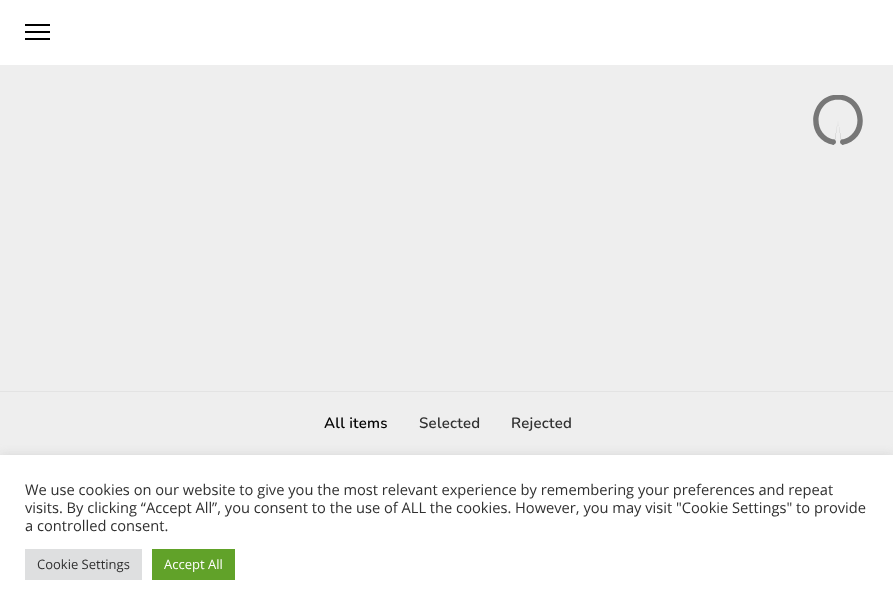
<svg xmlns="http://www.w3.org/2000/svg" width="893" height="610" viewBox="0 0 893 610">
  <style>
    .t1 { font: 600 15px Nunito; letter-spacing: 0.25px; fill: #000; }
    .t2 { font: 600 15px Nunito; letter-spacing: 0.25px; fill: #303030; }
    .t3 { font: 14.67px Open Sans; fill: #303030; }
    .t4 { font: 13px Open Sans; fill: #303030; }
    .t5 { font: 13px Open Sans; fill: #fff; }
  </style>
  <defs>
    <clipPath id="clip1"><rect x="813" y="95" width="25" height="50"/></clipPath>
    <clipPath id="clip2"><rect x="838" y="95" width="25" height="50"/></clipPath>
  </defs>
  <rect width="100%" height="100%" fill="#eee"/>
  <rect x="0" y="0" width="893" height="65" fill="#fff"/>
  <rect x="25" y="31" width="25" height="2" fill="#000"/>
  <rect x="25" y="24" width="25" height="2" fill="#000"/>
  <rect x="25" y="38" width="25" height="2" fill="#000"/>
  <g clip-path="url(#clip1)">
    <path d="M842 95L834 145C801 139 810 90 842 95ZM841 100L835 140C809 135 816 96 841 100Z" fill="#777" fill-rule="evenodd"/>
  </g>
  <path d="M834 139.5C837 140 836.5 145 833 144.5C830 144 831 139 834 139.5Z" fill="#777"/>
  <g clip-path="url(#clip2)">
    <path d="M834 95C866 90 875 139 842 145ZM835 100C860 96 867 135 841 140Z" fill="#777" fill-rule="evenodd"/>
  </g>
  <path d="M842 139.5C845 139 846 144 843 144.5C839.5 145 839 140 842 139.5Z" fill="#777"/>
  <rect x="0" y="391" width="893" height="1" fill="#e3e3e3"/>
  <text x="324" y="428" class="t1">All items</text>
  <text x="419" y="428" class="t2">Selected</text>
  <text x="511" y="428" class="t2">Rejected</text>
  <rect x="0" y="454" width="893" height="155" fill="#acabab4d" filter="blur(5px)"/>
  <rect x="0" y="455" width="893" height="155" fill="#fff"/>
  <text x="25" y="495" class="t3">We use cookies on our website to give you the most relevant experience by remembering your preferences and repeat</text>
  <text x="25" y="513" class="t3">visits. By clicking “Accept All”, you consent to the use of ALL the cookies. However, you may visit "Cookie Settings" to provide</text>
  <text x="25" y="531" class="t3">a controlled consent.</text>
  <rect x="25" y="549" width="117" height="31" fill="#dedfe0"/>
  <text x="37" y="569" class="t4">Cookie Settings</text>
  <rect x="152" y="549" width="83" height="31" fill="#61a229"/>
  <text x="164" y="569" class="t5">Accept All</text>
</svg>
